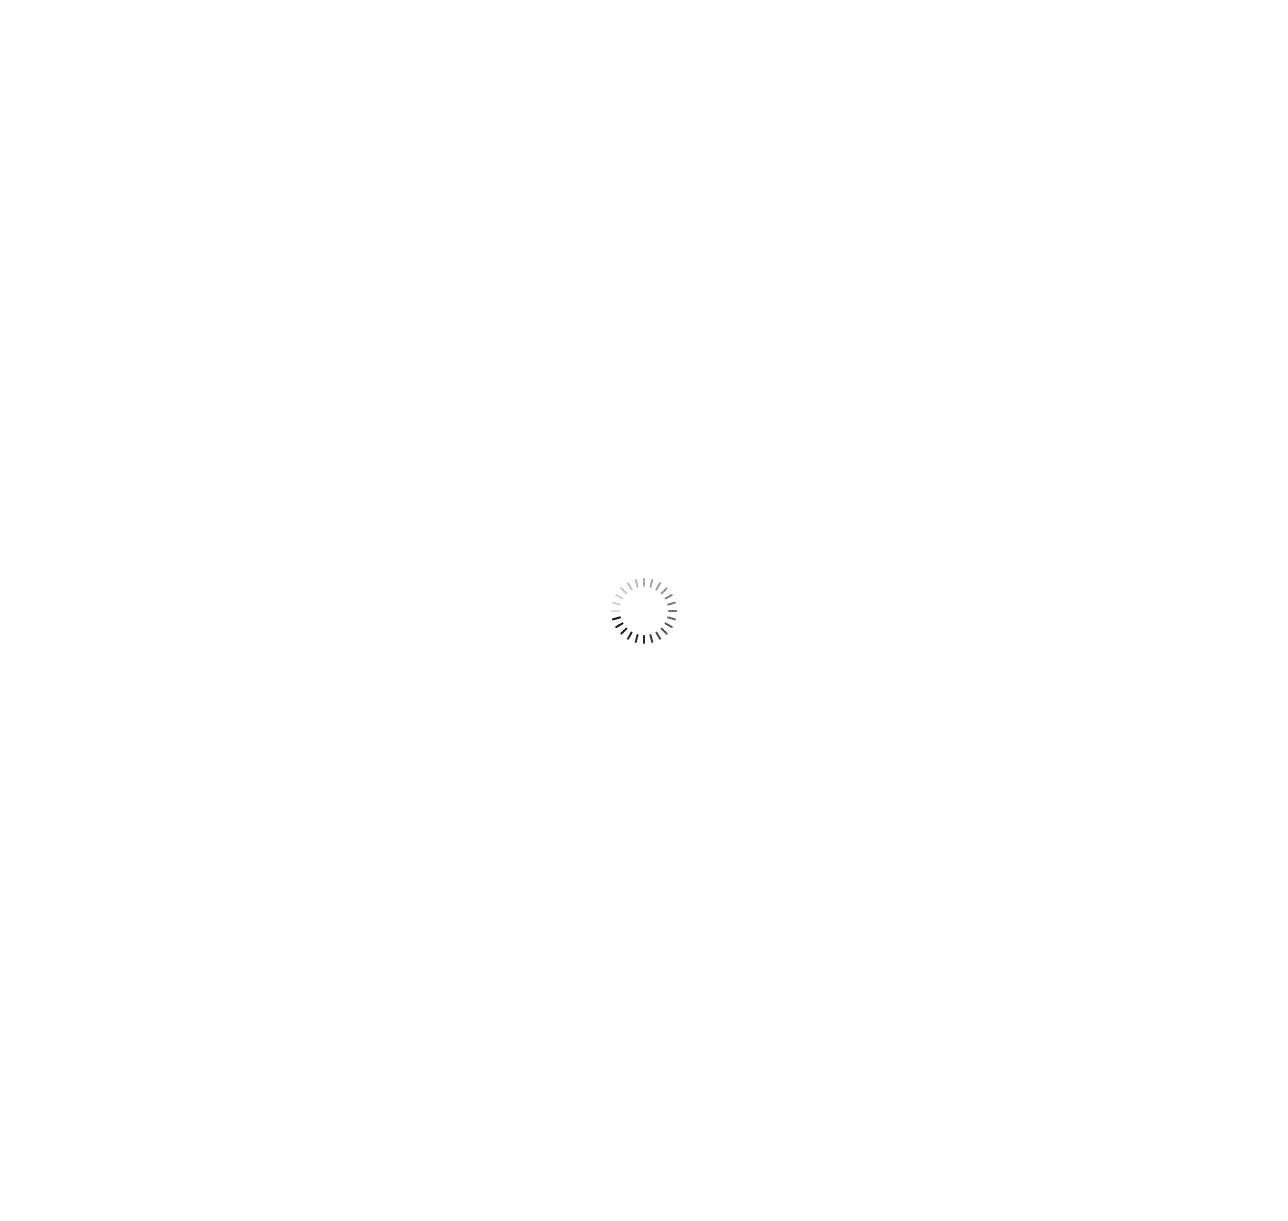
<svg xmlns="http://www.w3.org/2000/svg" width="1288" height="1221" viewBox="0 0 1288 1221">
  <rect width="100%" height="100%" fill="#fff"/>
  <image x="611" y="578" width="66" height="66" href="images/1.png"/>
</svg>
